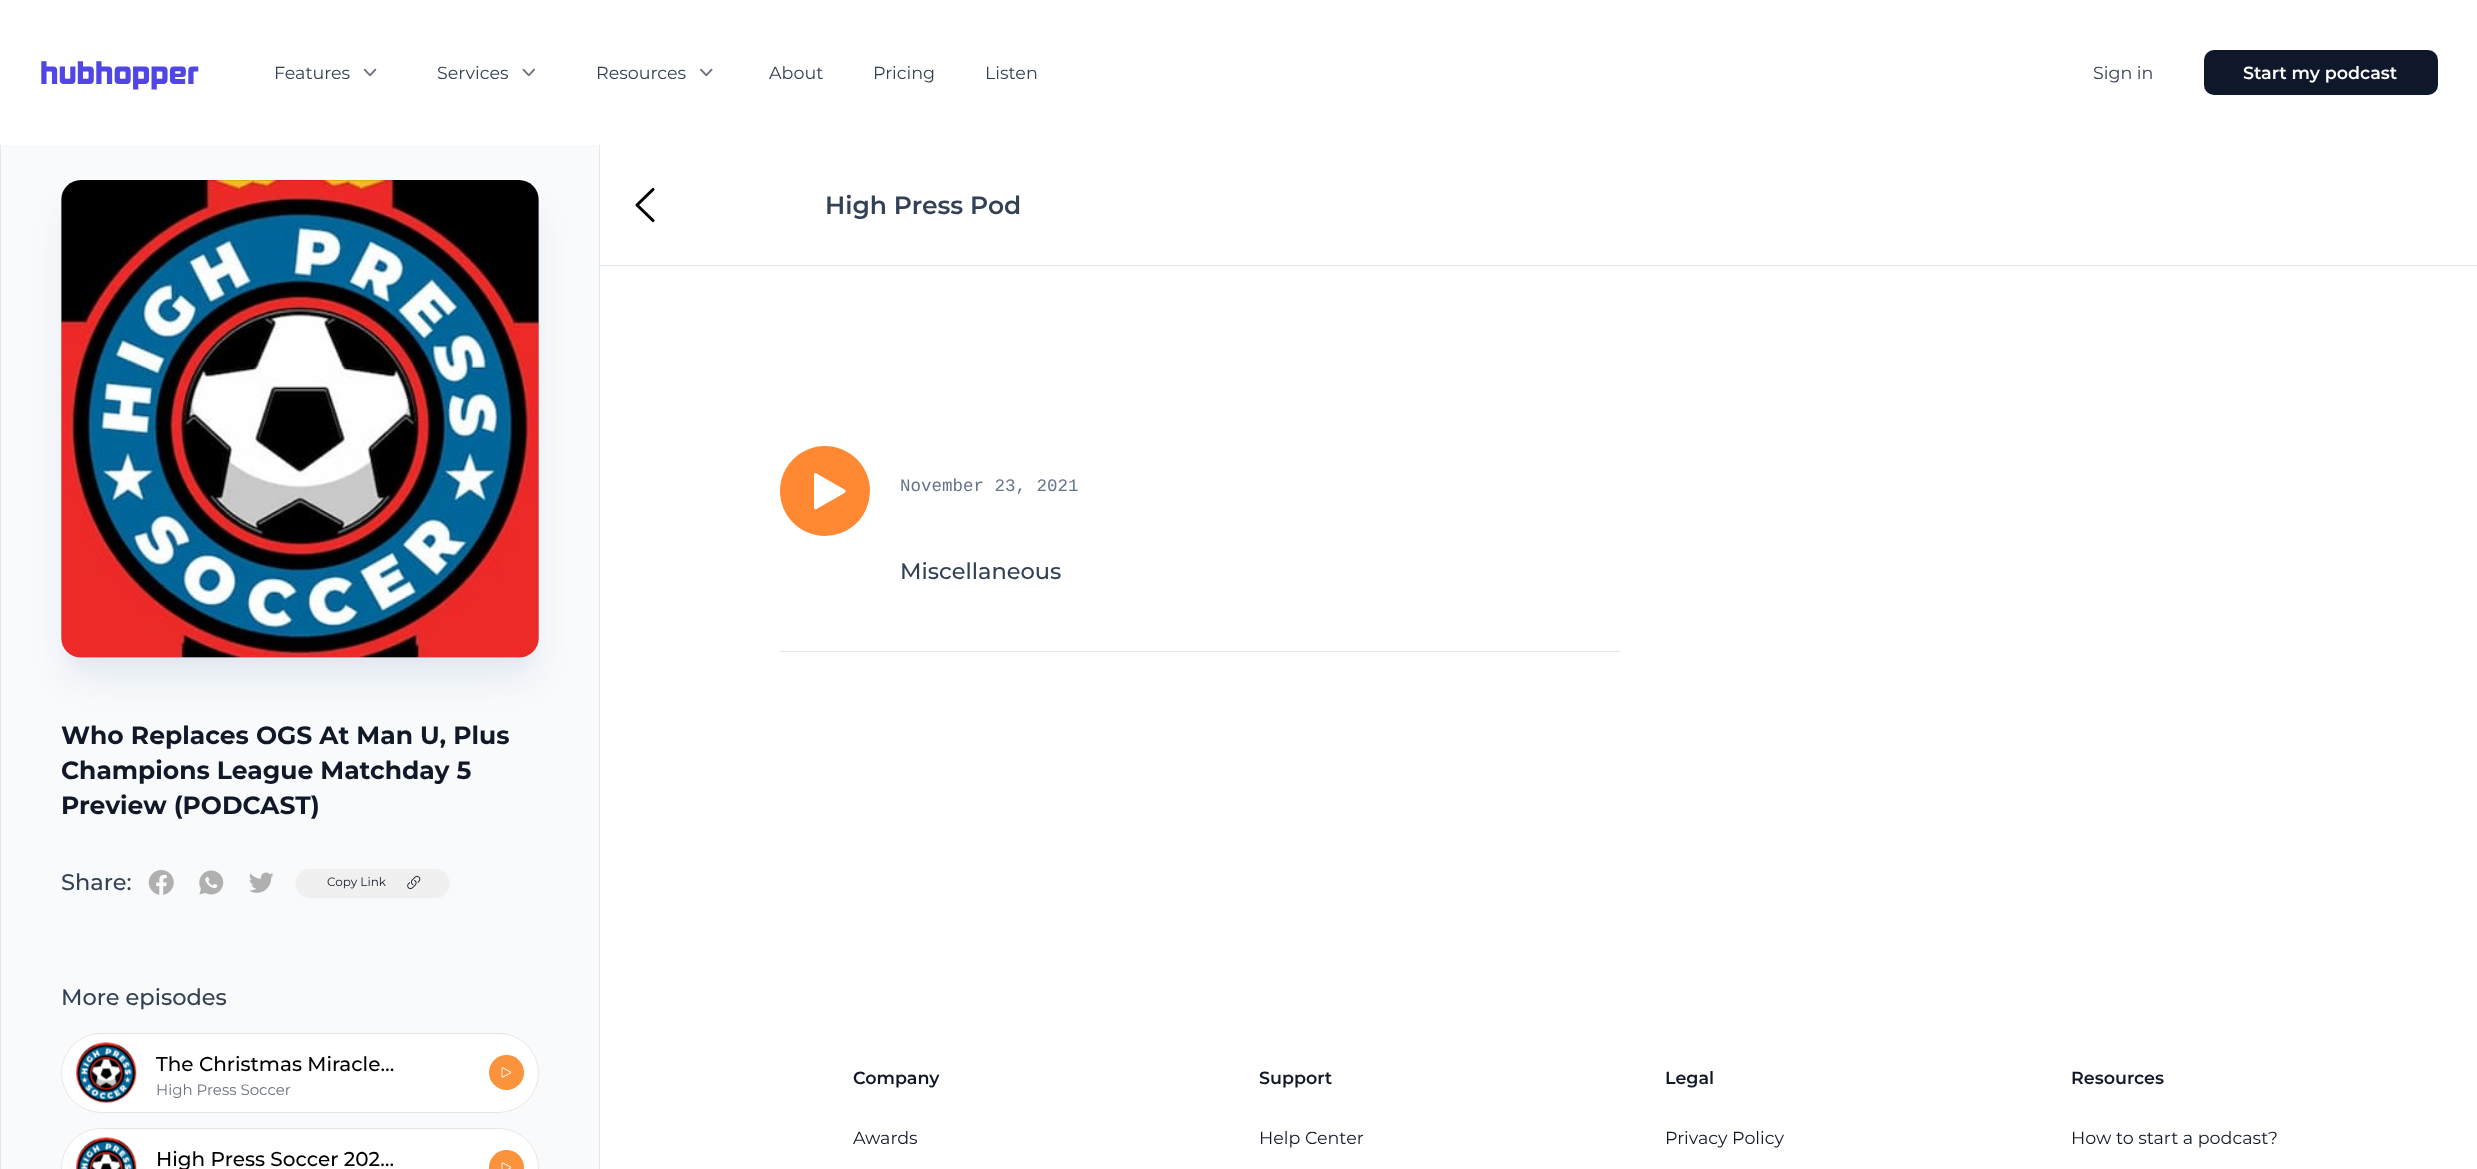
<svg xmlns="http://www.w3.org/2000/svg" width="2477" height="1169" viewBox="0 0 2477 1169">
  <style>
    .t1 { font: 900 30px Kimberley; fill: #4f46e5; }
    .t2 { font: 17.5px Montserrat; fill: #334155; }
    .t3 { font: 600 17.5px Montserrat; fill: #fff; }
    .t4 { font: 600 25px Montserrat; fill: #334155; }
    .t5 { font: 17.5px Liberation Mono; fill: #64748b; }
    .t6 { font: 500 22.5px Montserrat; fill: #334155; }
    .t7 { font: bold 25px Montserrat; fill: #111827; }
    .t8 { font: 12px Montserrat; fill: #111827; }
    .t9 { font: 500 20px Montserrat; fill: #000; }
    .t10 { font: 15px Montserrat; fill: #6b7280; }
    .t11 { font: 600 17.5px Montserrat; fill: #111827; }
    .t12 { font: 17.5px Montserrat; fill: #111827; }
  </style>
  <rect width="100%" height="100%" fill="#fff"/>
  <text x="40" y="84" class="t1">hubhopper</text>
  <text x="274" y="79" class="t2">Features</text>
  <image x="363" y="68" width="14" height="9" href="images/1.png"/>
  <text x="437" y="79" class="t2">Services</text>
  <image x="522" y="68" width="13" height="9" href="images/2.png"/>
  <text x="596" y="79" class="t2">Resources</text>
  <image x="700" y="68" width="13" height="9" href="images/3.png"/>
  <text x="769" y="79" class="t2">About</text>
  <text x="873" y="79" class="t2">Pricing</text>
  <text x="985" y="79" class="t2">Listen</text>
  <text x="2093" y="79" class="t2">Sign in</text>
  <rect x="2204" y="50" width="234" height="45" rx="10" fill="#0f172a"/>
  <text x="2243" y="79" class="t3">Start my podcast</text>
  <rect x="600" y="265" width="1877" height="1" fill="#e5e7eb"/>
  <path d="M653 220.5L637 205L653 189.5" fill="none" stroke="#000" stroke-width="3.1" stroke-linecap="round" stroke-linejoin="round"/>
  <text x="825" y="214" class="t4">High Press Pod</text>
  <circle cx="825" cy="491" r="45" fill="#ff8933"/>
  <path d="M844.5 489.5C846 490.5 846 492 844.5 493L816.5 509C815.5 510 814 509 814 507.5V475C814 473.5 815.5 472.5 816.5 473.5Z" fill="#fff"/>
  <text x="900" y="491" class="t5">November 23, 2021</text>
  <text x="900" y="579" class="t6">Miscellaneous</text>
  <rect x="780" y="651" width="840" height="1" fill="#e5e7eb"/>
  <rect x="1" y="145" width="598" height="1024" fill="#f8fafc"/>
  <rect x="599" y="145" width="1" height="1024" fill="#e2e8f0"/>
  <rect x="0" y="145" width="1" height="1024" fill="#e2e8f0"/>
  <rect x="69" y="198" width="462" height="462" rx="13" fill="#e2e8f0" filter="blur(6px)"/>
  <rect x="68" y="211" width="465" height="465" rx="14" fill="#e2e8f0" filter="blur(15.5px)"/>
  <rect x="61" y="180" width="478" height="478" rx="20" fill="#e2e8f0"/>
  <image x="61" y="180" width="478" height="478" href="images/4.png"/>
  <rect x="61.5" y="180.5" width="477" height="477" rx="19.5" fill="none" stroke="#0000001a"/>
  <text x="61" y="744" class="t7">Who Replaces OGS At Man U, Plus</text>
  <text x="61" y="779" class="t7">Champions League Matchday 5</text>
  <text x="61" y="814" class="t7">Preview (PODCAST)</text>
  <text x="61" y="890" class="t6">Share:</text>
  <image x="148" y="870" width="26" height="25" href="images/5.png"/>
  <image x="199" y="870" width="25" height="25" href="images/6.png"/>
  <image x="249" y="872" width="25" height="21" href="images/7.png"/>
  <rect x="296" y="870" width="153" height="28" rx="14" fill="#0000000d" filter="blur(1px)"/>
  <rect x="296" y="869" width="153" height="27" rx="13.5" fill="#f0f0f0"/>
  <text x="327" y="886" class="t8">Copy Link</text>
  <image x="407" y="876" width="14" height="13" href="images/8.png"/>
  <text x="61" y="1005" class="t6">More episodes</text>
  <rect x="61" y="1033" width="478" height="80" rx="40" fill="#fff"/>
  <rect x="61.5" y="1033.5" width="477" height="79" rx="39.5" fill="none" stroke="#0000001a"/>
  <image x="76" y="1042" width="61" height="61" href="images/9.png"/>
  <text x="156" y="1071" class="t9">The Christmas Miracle…</text>
  <text x="156" y="1095" class="t10">High Press Soccer</text>
  <circle cx="506.5" cy="1072.5" r="17.5" fill="#fb923c"/>
  <image x="501" y="1067" width="11" height="11" href="images/10.png"/>
  <rect x="61" y="1128" width="478" height="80" rx="40" fill="#fff"/>
  <rect x="61.5" y="1128.5" width="477" height="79" rx="39.5" fill="none" stroke="#0000001a"/>
  <image x="76" y="1137" width="61" height="32" href="images/11.png"/>
  <text x="156" y="1166" class="t9">High Press Soccer 202…</text>
  <circle cx="506.5" cy="1167.5" r="17.5" fill="#fb923c"/>
  <image x="501" y="1162" width="11" height="7" href="images/12.png"/>
  <text x="853" y="1084" class="t11">Company</text>
  <text x="853" y="1144" class="t12">Awards</text>
  <text x="1259" y="1084" class="t11">Support</text>
  <text x="1259" y="1144" class="t12">Help Center</text>
  <text x="1665" y="1084" class="t11">Legal</text>
  <text x="1665" y="1144" class="t12">Privacy Policy</text>
  <text x="2071" y="1084" class="t11">Resources</text>
  <text x="2071" y="1144" class="t12">How to start a podcast?</text>
</svg>
